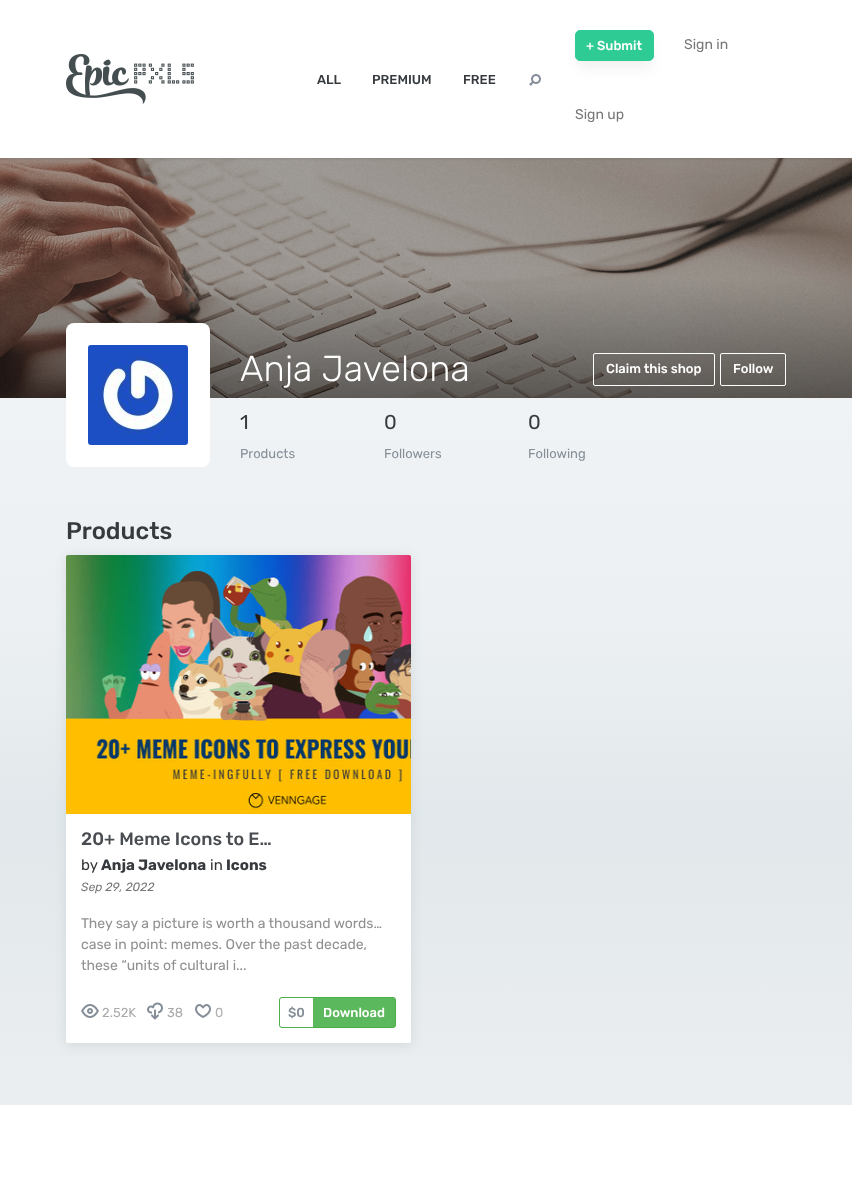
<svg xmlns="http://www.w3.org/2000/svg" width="852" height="1193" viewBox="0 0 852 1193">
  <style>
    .t1 { font: 500 13px Rubik; fill: #363a3e; }
    .t2 { font: 500 13px Rubik; fill: #fff; }
    .t3 { font: 14px Rubik; fill: #777; }
    .t4 { font: 300 36px Rubik; fill: #fff; }
    .t5 { font: 20px Rubik; fill: #363a3e; }
    .t6 { font: 13px Rubik; fill: #858f98; }
    .t7 { font: 500 24px Rubik; fill: #363a3e; }
    .t8 { font: 500 18px Rubik; fill: #494d51; }
    .t9 { font: 15px Rubik; fill: #333; }
    .t10 { font: bold 15px Rubik; fill: #363a3e; }
    .t11 { font: italic 12px Rubik; fill: #777; }
    .t12 { font: 14px Rubik; fill: #909090; }
    .t13 { font: 13px Rubik; fill: #aaa; }
    .t14 { font: 13px Rubik; fill: #b0b0b0; }
    .t15 { font: 500 13px Rubik; fill: #858f98; }
  </style>
  <defs>
    <linearGradient id="g1" gradientUnits="userSpaceOnUse" x1="426" y1="0" x2="426" y2="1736"><stop offset="0.03" stop-color="#fbfcfc"/><stop offset="0.17" stop-color="#f2f4f6"/><stop offset="0.36" stop-color="#ecf0f2"/><stop offset="0.47" stop-color="#e2e8eb"/><stop offset="0.59" stop-color="#e8ecee"/><stop offset="0.67" stop-color="#eef1f3"/><stop offset="0.81" stop-color="#f3f6f7"/></linearGradient>
  </defs>
  <rect width="100%" height="100%" fill="#fff"/>
  <rect x="0" y="398" width="852" height="707" fill="url(#g1)"/>
  <image x="0" y="158" width="852" height="240" href="images/3.png"/>
  <rect x="0" y="1" width="852" height="158" fill="#0000001a" filter="blur(1px)"/>
  <rect x="0" y="0" width="852" height="158" fill="#fff"/>
  <image x="66" y="54" width="128" height="50" href="images/1.png"/>
  <text x="317" y="84" class="t1">ALL</text>
  <text x="372" y="84" class="t1">PREMIUM</text>
  <text x="463" y="84" class="t1">FREE</text>
  <image x="529" y="74" width="12" height="12" href="images/2.png"/>
  <rect x="578" y="43" width="73" height="25" rx="2" fill="#0000000f" filter="blur(6.5px)"/>
  <rect x="575.5" y="30.5" width="78" height="30" rx="4.5" fill="#2ecb95" stroke="#2ecb95"/>
  <text x="586" y="50" class="t2">+ Submit</text>
  <text x="684" y="49" class="t3">Sign in</text>
  <text x="575" y="119" class="t3">Sign up</text>
  <rect x="66" y="323" width="144" height="144" rx="8" fill="#fff"/>
  <image x="88" y="345" width="100" height="100" href="images/4.png"/>
  <text x="240" y="381" class="t4">Anja Javelona</text>
  <rect x="593.5" y="353.5" width="121" height="32" rx="1.5" fill="none" stroke="#fff"/>
  <text x="606" y="373" class="t2">Claim this shop</text>
  <rect x="720.5" y="353.5" width="65" height="32" rx="1.5" fill="none" stroke="#fff"/>
  <text x="733" y="373" class="t2">Follow</text>
  <text x="240" y="429" class="t5">1</text>
  <text x="240" y="458" class="t6">Products</text>
  <text x="384" y="429" class="t5">0</text>
  <text x="384" y="458" class="t6">Followers</text>
  <text x="528" y="429" class="t5">0</text>
  <text x="528" y="458" class="t6">Following</text>
  <text x="66" y="539" class="t7">Products</text>
  <rect x="66" y="557" width="345" height="488" rx="2" fill="#c1cace8a" filter="blur(6px)"/>
  <image x="66" y="555" width="345" height="259" href="images/5.png"/>
  <path d="M66 814H411V1041C411 1042 410 1043 409 1043H68C67 1043 66 1042 66 1041Z" fill="#fff"/>
  <text x="81" y="845" class="t8">20+ Meme Icons to E…</text>
  <text x="81" y="870" class="t9">by</text>
  <text x="101" y="870" class="t10">Anja Javelona</text>
  <text x="210" y="870" class="t9">in</text>
  <text x="226" y="870" class="t10">Icons</text>
  <text x="81" y="891" class="t11">Sep 29, 2022</text>
  <text x="81" y="928" class="t12">They say a picture is worth a thousand words…</text>
  <text x="81" y="949" class="t12">case in point: memes. Over the past decade,</text>
  <text x="81" y="970" class="t12">these “units of cultural i...</text>
  <image x="81" y="1004" width="18" height="14" href="images/6.png"/>
  <text x="102" y="1017" class="t13">2.52K</text>
  <image x="147" y="1002" width="16" height="18" href="images/7.png"/>
  <text x="167" y="1017" class="t13">38</text>
  <image x="195" y="1004" width="16" height="14" href="images/8.png"/>
  <text x="215" y="1017" class="t14">0</text>
  <rect x="279.5" y="997.5" width="116" height="30" rx="2.5" fill="#5cb85c" stroke="#4cae4c"/>
  <path d="M282 998H313V1027H282C281 1027 280 1026 280 1025V1000C280 999 281 998 282 998Z" fill="#fff"/>
  <text x="288" y="1017" class="t15">$0</text>
  <text x="323" y="1017" class="t2">Download</text>
</svg>
